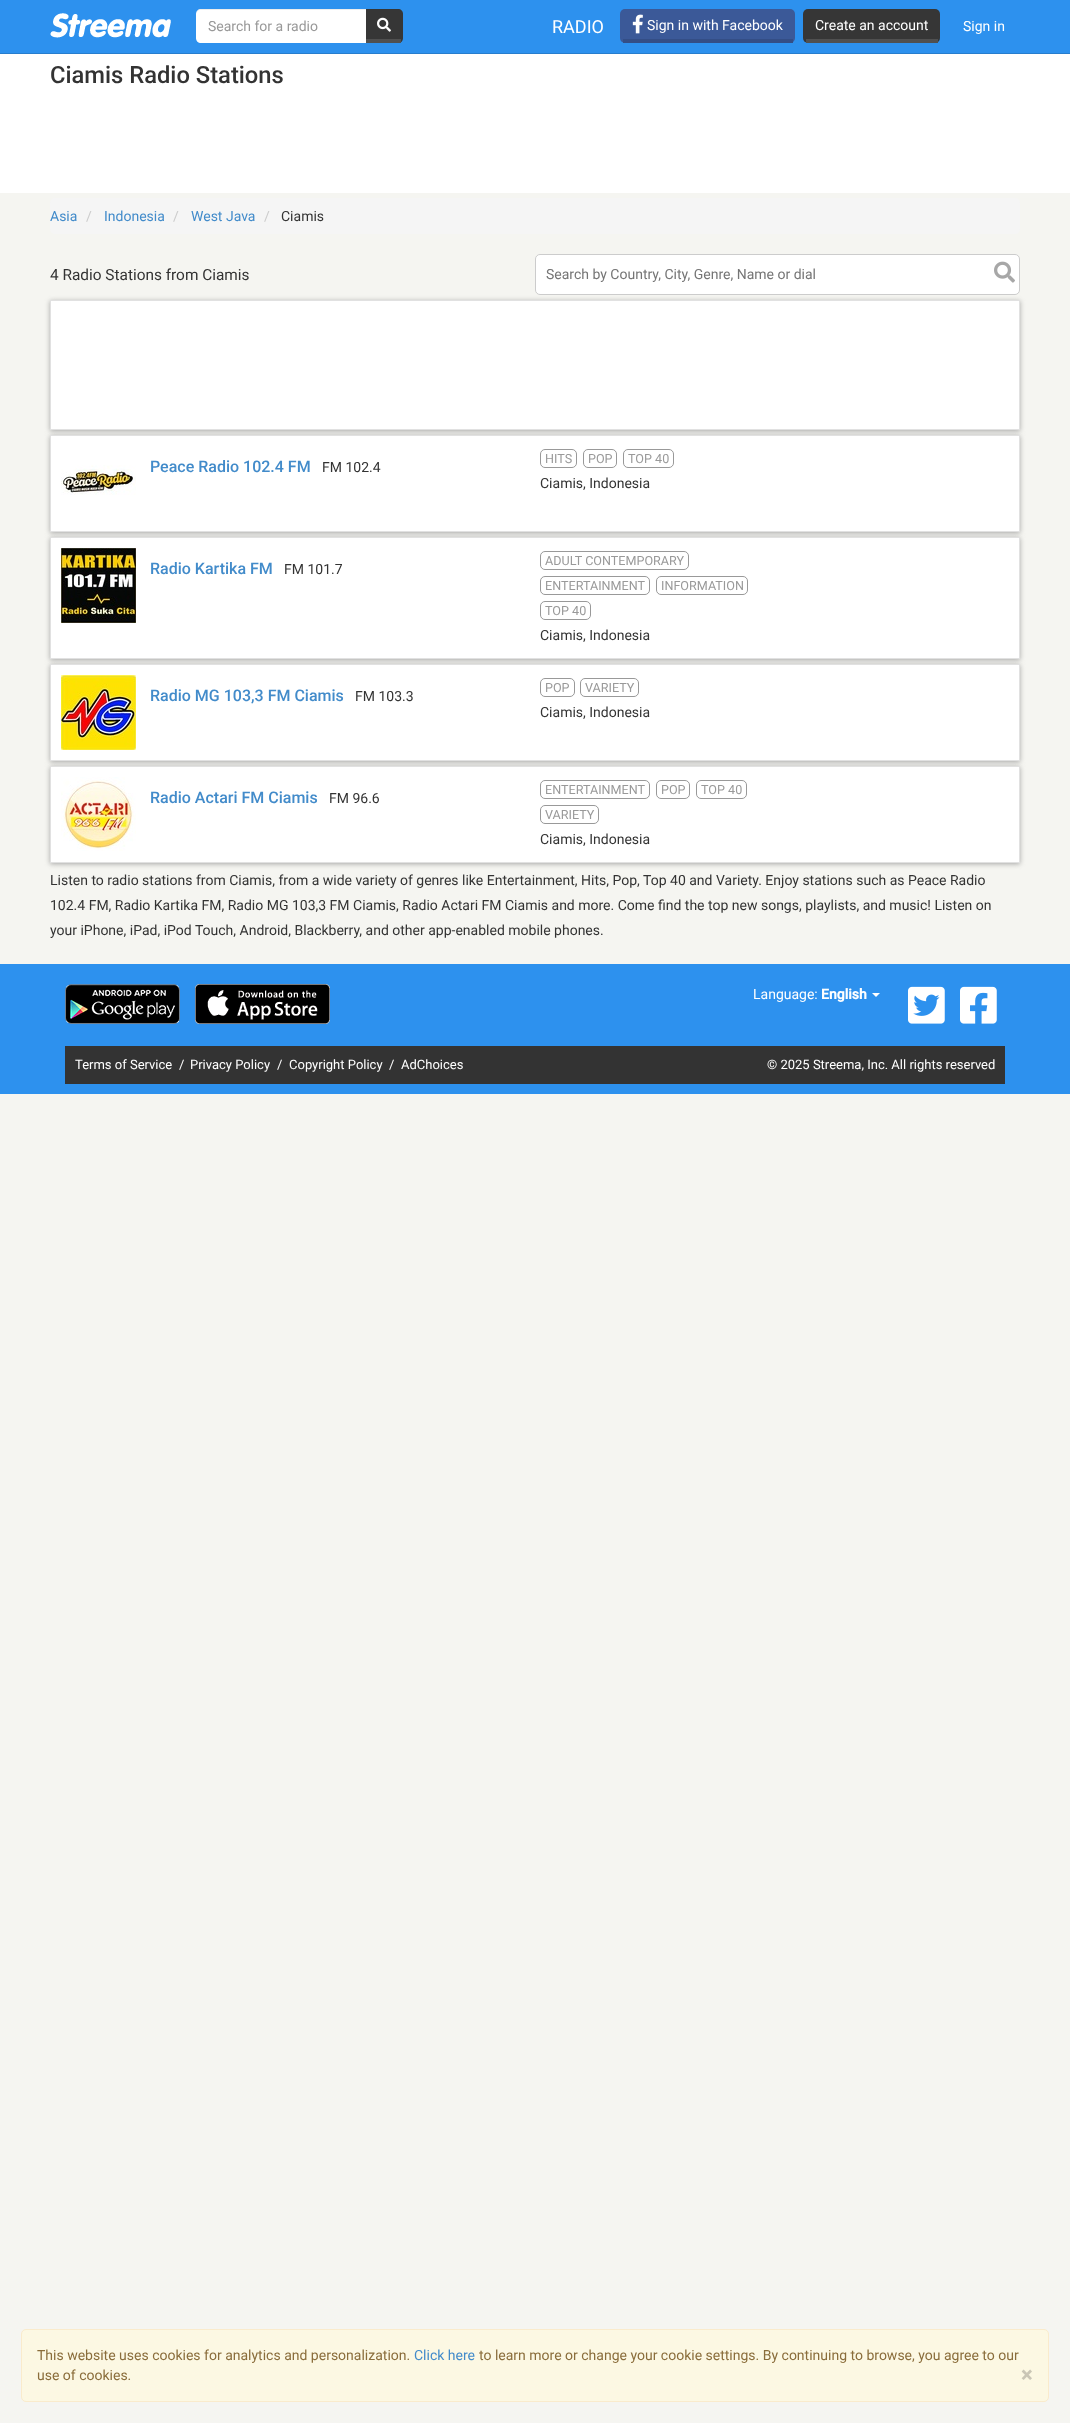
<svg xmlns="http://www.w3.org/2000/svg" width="1070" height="2423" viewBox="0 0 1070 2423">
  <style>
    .t1 { font: 14px Roboto; fill: #999; }
    .t2 { font: 18px Roboto; fill: #fff; }
    .t3 { font: 14px Roboto; fill: #fff; }
    .t4 { font: 500 23.75px Roboto; fill: #333; }
    .t5 { font: 14px Roboto; fill: #428bca; }
    .t6 { font: 14px Roboto; fill: #ccc; }
    .t7 { font: 14px Roboto; fill: #333; }
    .t8 { font: 15.4px Roboto; fill: #333; }
    .t9 { font: 14px Roboto; fill: #757575; }
    .t10 { font: 500 16px Roboto; fill: #428bca; }
    .t11 { font: 12.6px Roboto; fill: #999; }
    .t12 { font: bold 14px Roboto; fill: #fff; }
    .t13 { font: 13px Roboto; fill: #fff; }
    .t14 { font: 14px Roboto; fill: #8a6d3b; }
    .t15 { font: bold 21px Roboto; fill: #cac6b6; }
  </style>
  <rect width="100%" height="100%" fill="#f5f5f1"/>
  <rect x="0" y="0" width="1070" height="53" fill="#2d91ee"/>
  <rect x="0" y="53" width="1070" height="1" fill="#277dcd"/>
  <image x="50" y="13" width="121" height="25" href="images/1.png"/>
  <path d="M365 9H398C401 9 403 11 403 14V38C403 41 401 43 398 43H365Z" fill="#363636"/>
  <rect x="365" y="39" width="36" height="4" fill="#505050"/>
  <path d="M201 9H366V43H201C198 43 196 41 196 38V14C196 11 198 9 201 9Z" fill="#fff"/>
  <path d="M201 10H366V9H201C198 9 196 11 196 14V15C196 12 198 10 201 10Z" fill="#00000012"/>
  <text x="208" y="31" class="t1">Search for a radio</text>
  <image x="377" y="17" width="14" height="15" href="images/2.png"/>
  <text x="552" y="33" class="t2">RADIO</text>
  <rect x="620" y="9" width="175" height="34" rx="5" fill="#3b5998"/>
  <rect x="623" y="39" width="170" height="4" fill="#344e86"/>
  <image x="632" y="14" width="11" height="20" href="images/3.png"/>
  <text x="647" y="30" class="t3">Sign in with Facebook</text>
  <rect x="803" y="9" width="137" height="34" rx="5" fill="#363636"/>
  <rect x="806" y="39" width="132" height="4" fill="#505050"/>
  <text x="815" y="30" class="t3">Create an account</text>
  <text x="963" y="31" class="t3">Sign in</text>
  <rect x="0" y="54" width="1070" height="139" fill="#fff"/>
  <text x="50" y="83" class="t4">Ciamis Radio Stations</text>
  <rect x="50" y="198" width="970" height="36" rx="5" fill="#f5f5f5"/>
  <text x="50" y="221" class="t5">Asia</text>
  <text x="86" y="221" class="t6">/</text>
  <text x="104" y="221" class="t5">Indonesia</text>
  <text x="173" y="221" class="t6">/</text>
  <text x="191" y="221" class="t5">West Java</text>
  <text x="264" y="221" class="t6">/</text>
  <text x="281" y="221" class="t7">Ciamis</text>
  <text x="50" y="280" class="t8">4 Radio Stations from Ciamis</text>
  <rect x="535.5" y="254.5" width="484" height="40" rx="4.5" fill="#fff" stroke="#ccc"/>
  <text x="546" y="279" class="t9">Search by Country, City, Genre, Name or dial</text>
  <image x="994" y="261" width="21" height="22" href="images/4.png"/>
  <rect x="50" y="301" width="970" height="130" fill="#8c8c8cbf" filter="blur(2.5px)"/>
  <rect x="50.5" y="300.5" width="969" height="129" fill="#fff" stroke="#e1e1e1"/>
  <rect x="50" y="436" width="970" height="97" fill="#8c8c8cbf" filter="blur(2.5px)"/>
  <rect x="50.5" y="435.5" width="969" height="96" fill="#fff" stroke="#e1e1e1"/>
  <image x="61" y="465" width="75" height="30" href="images/5.png"/>
  <text x="150" y="472" class="t10">Peace Radio 102.4 FM</text>
  <text x="322" y="472" class="t7">FM 102.4</text>
  <rect x="540.5" y="449.5" width="36" height="18" rx="4.5" fill="none" stroke="#999"/>
  <text x="545" y="463" class="t11">HITS</text>
  <rect x="583.5" y="449.5" width="33" height="18" rx="4.5" fill="none" stroke="#999"/>
  <text x="588" y="463" class="t11">POP</text>
  <rect x="623.5" y="449.5" width="50" height="18" rx="4.5" fill="none" stroke="#999"/>
  <text x="628" y="463" class="t11">TOP 40</text>
  <text x="540" y="488" class="t7">Ciamis, Indonesia</text>
  <rect x="50" y="538" width="970" height="122" fill="#8c8c8cbf" filter="blur(2.5px)"/>
  <rect x="50.5" y="537.5" width="969" height="121" fill="#fff" stroke="#e1e1e1"/>
  <image x="61" y="548" width="75" height="75" href="images/6.png"/>
  <text x="150" y="574" class="t10">Radio Kartika FM</text>
  <text x="284" y="574" class="t7">FM 101.7</text>
  <rect x="540.5" y="551.5" width="148" height="18" rx="4.5" fill="none" stroke="#999"/>
  <text x="545" y="565" class="t11">ADULT CONTEMPORARY</text>
  <rect x="540.5" y="576.5" width="109" height="18" rx="4.5" fill="none" stroke="#999"/>
  <text x="545" y="590" class="t11">ENTERTAINMENT</text>
  <rect x="656.5" y="576.5" width="91" height="18" rx="4.5" fill="none" stroke="#999"/>
  <text x="661" y="590" class="t11">INFORMATION</text>
  <rect x="540.5" y="601.5" width="50" height="18" rx="4.5" fill="none" stroke="#999"/>
  <text x="545" y="615" class="t11">TOP 40</text>
  <text x="540" y="640" class="t7">Ciamis, Indonesia</text>
  <rect x="50" y="665" width="970" height="97" fill="#8c8c8cbf" filter="blur(2.5px)"/>
  <rect x="50.5" y="664.5" width="969" height="96" fill="#fff" stroke="#e1e1e1"/>
  <image x="61" y="675" width="75" height="75" href="images/7.png"/>
  <text x="150" y="701" class="t10">Radio MG 103,3 FM Ciamis</text>
  <text x="355" y="701" class="t7">FM 103.3</text>
  <rect x="540.5" y="678.5" width="34" height="18" rx="4.5" fill="none" stroke="#999"/>
  <text x="545" y="692" class="t11">POP</text>
  <rect x="580.5" y="678.5" width="58" height="18" rx="4.5" fill="none" stroke="#999"/>
  <text x="585" y="692" class="t11">VARIETY</text>
  <text x="540" y="717" class="t7">Ciamis, Indonesia</text>
  <rect x="50" y="767" width="970" height="97" fill="#8c8c8cbf" filter="blur(2.5px)"/>
  <rect x="50.5" y="766.5" width="969" height="96" fill="#fff" stroke="#e1e1e1"/>
  <image x="61" y="777" width="75" height="74" href="images/8.png"/>
  <text x="150" y="803" class="t10">Radio Actari FM Ciamis</text>
  <text x="329" y="803" class="t7">FM 96.6</text>
  <rect x="540.5" y="780.5" width="109" height="18" rx="4.5" fill="none" stroke="#999"/>
  <text x="545" y="794" class="t11">ENTERTAINMENT</text>
  <rect x="656.5" y="780.5" width="33" height="18" rx="4.5" fill="none" stroke="#999"/>
  <text x="661" y="794" class="t11">POP</text>
  <rect x="696.5" y="780.5" width="50" height="18" rx="4.5" fill="none" stroke="#999"/>
  <text x="701" y="794" class="t11">TOP 40</text>
  <rect x="540.5" y="805.5" width="58" height="18" rx="4.5" fill="none" stroke="#999"/>
  <text x="545" y="819" class="t11">VARIETY</text>
  <text x="540" y="844" class="t7">Ciamis, Indonesia</text>
  <text x="50" y="885" class="t7">Listen to radio stations from Ciamis, from a wide variety of genres like Entertainment, Hits, Pop, Top 40 and Variety. Enjoy stations such as Peace Radio</text>
  <text x="50" y="910" class="t7">102.4 FM, Radio Kartika FM, Radio MG 103,3 FM Ciamis, Radio Actari FM Ciamis and more. Come find the top new songs, playlists, and music! Listen on</text>
  <text x="50" y="935" class="t7">your iPhone, iPad, iPod Touch, Android, Blackberry, and other app-enabled mobile phones.</text>
  <rect x="0" y="964" width="1070" height="130" fill="#2d91ee"/>
  <image x="65" y="984" width="115" height="40" href="images/9.png"/>
  <image x="195" y="984" width="135" height="40" href="images/10.png"/>
  <text x="753" y="999" class="t3">Language:</text>
  <text x="821" y="999" class="t12">English</text>
  <path d="M872 993H880L876 997Z" fill="#fff"/>
  <image x="908" y="986" width="37" height="38" href="images/11.png"/>
  <image x="960" y="986" width="37" height="38" href="images/12.png"/>
  <rect x="65" y="1046" width="940" height="38" fill="#333"/>
  <text x="75" y="1069" class="t13">Terms of Service</text>
  <text x="179" y="1069" class="t13">/</text>
  <text x="190" y="1069" class="t13">Privacy Policy</text>
  <text x="277" y="1069" class="t13">/</text>
  <text x="289" y="1069" class="t13">Copyright Policy</text>
  <text x="389" y="1069" class="t13">/</text>
  <text x="401" y="1069" class="t13">AdChoices</text>
  <text x="767" y="1069" class="t13">© 2025 Streema, Inc. All rights reserved</text>
  <rect x="21.5" y="2329.5" width="1027" height="72" rx="4.5" fill="#fcf8e3" stroke="#faebcc"/>
  <text x="37" y="2360" class="t14">This website uses cookies for analytics and personalization.</text>
  <text x="414" y="2360" class="t5">Click here</text>
  <text x="479" y="2360" class="t14">to learn more or change your cookie settings. By continuing to browse, you agree to our</text>
  <text x="37" y="2380" class="t14">use of cookies.</text>
  <text x="1021" y="2382" class="t15">×</text>
</svg>
